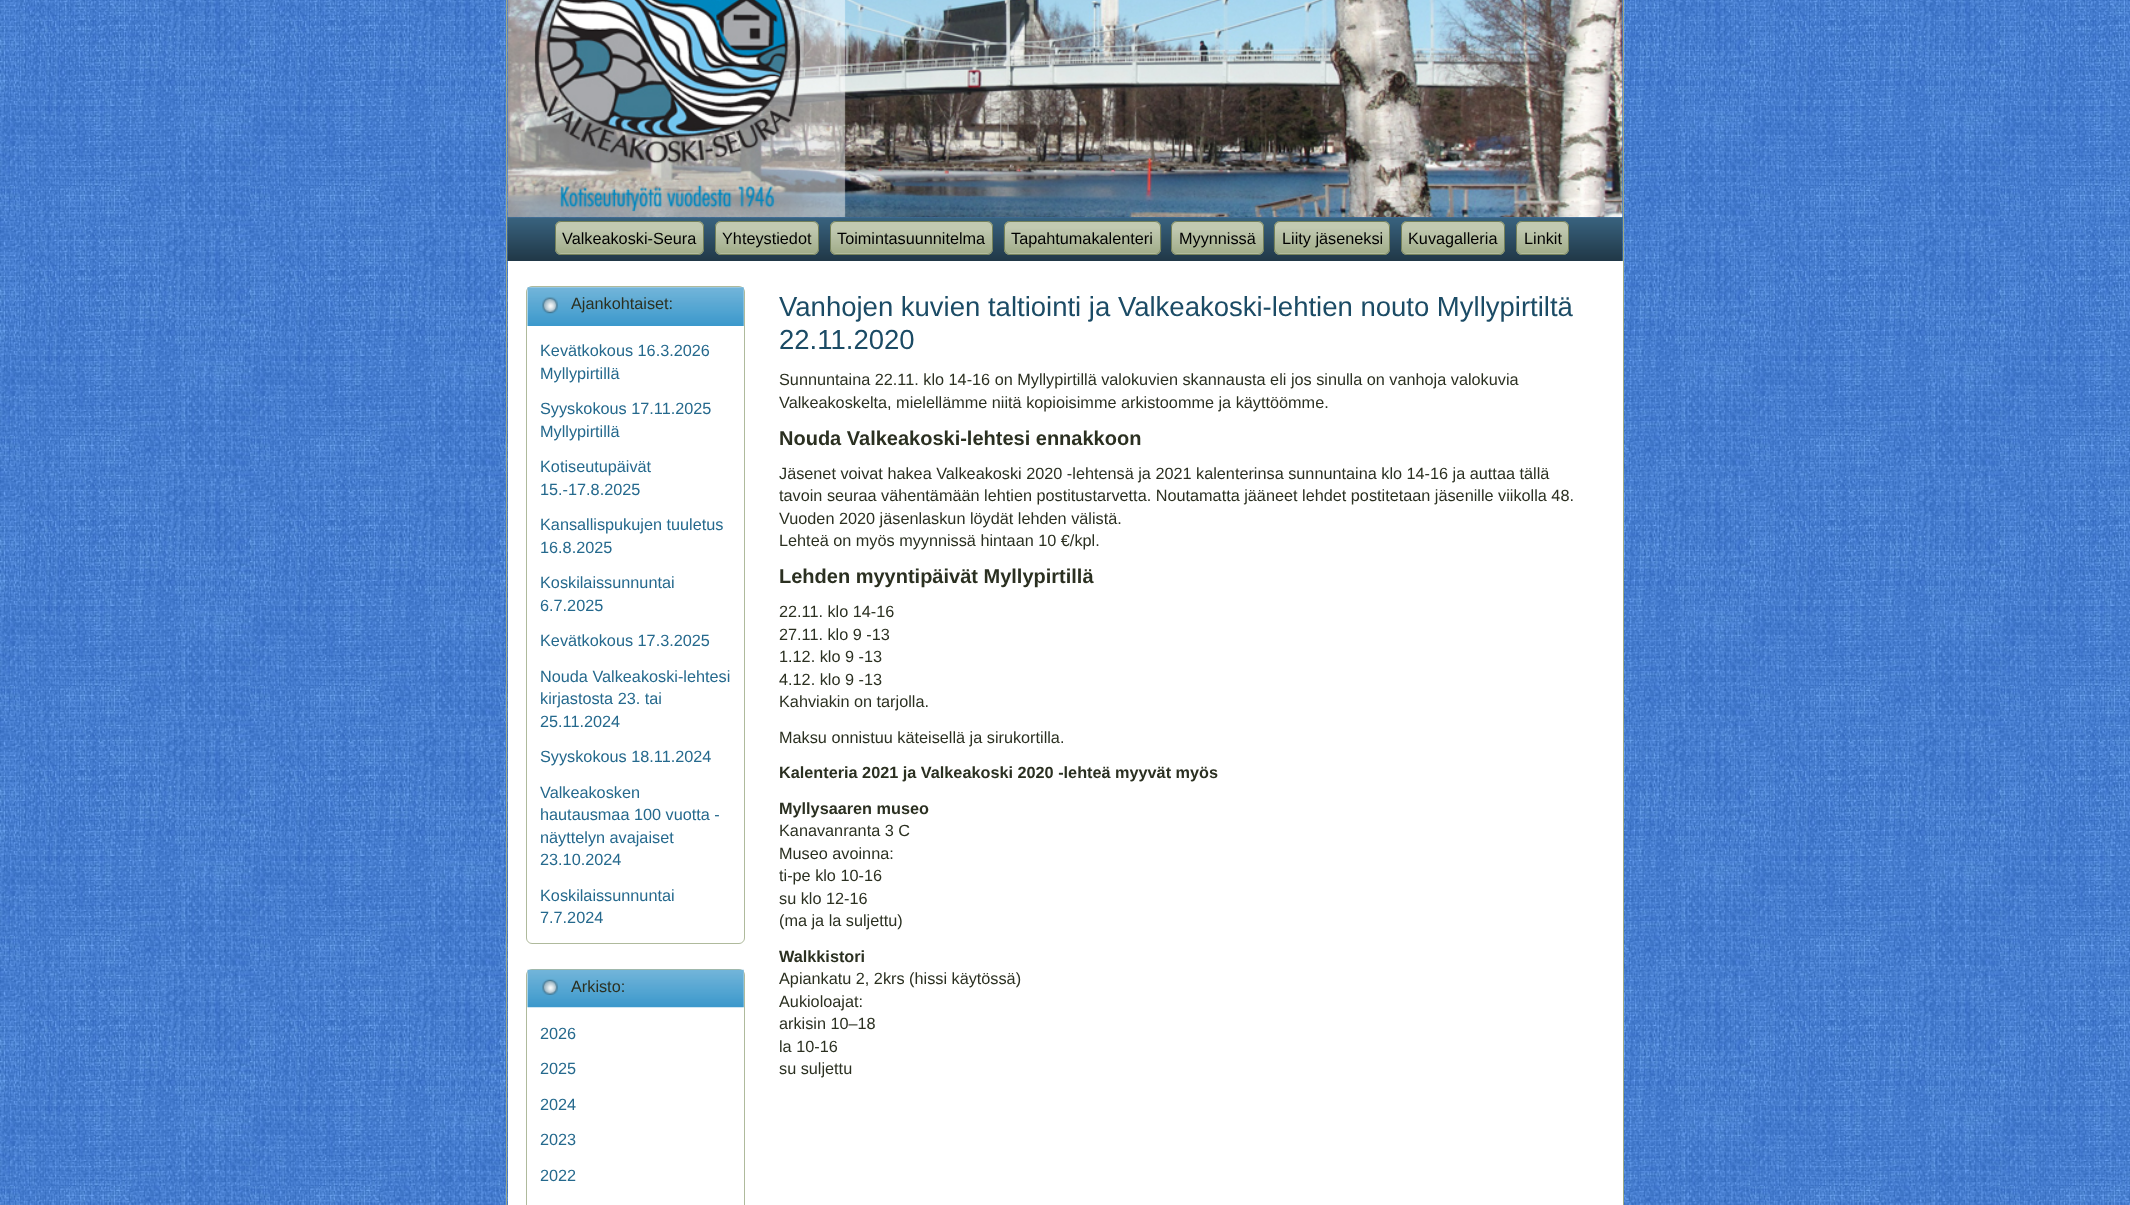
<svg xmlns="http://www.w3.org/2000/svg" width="2130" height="1205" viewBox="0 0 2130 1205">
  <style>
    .t1 { font: 16.25px Liberation Sans; fill: #000; }
    .t2 { font: 16.25px Liberation Sans; fill: #2b3021; }
    .t3 { font: 16.25px Liberation Sans; fill: #25698d; }
    .t4 { font: 27.5px Liberation Sans; fill: #1b4b65; }
    .t5 { font: bold 20px Liberation Sans; fill: #2b3021; }
    .t6 { font: bold 16.25px Liberation Sans; fill: #2b3021; }
  </style>
  <rect width="100%" height="100%" fill="#fff"/>
  <image x="0" y="0" width="2130" height="1205" href="images/1.png"/>
  <rect x="1623" y="0" width="1" height="1205" fill="#9ca984"/>
  <rect x="506" y="0" width="1" height="1205" fill="#9ca984"/>
  <image x="507" y="217" width="1116" height="44" href="images/3.png"/>
  <image x="507" y="0" width="1116" height="218" href="images/2.png"/>
  <rect x="555" y="221" width="149" height="34" rx="6" fill="#c2cab2"/>
  <image x="555" y="230" width="149" height="24" href="images/4.png"/>
  <rect x="555.5" y="221.5" width="148" height="33" rx="5.5" fill="none" stroke="#74815a"/>
  <text x="562" y="244" class="t1">Valkeakoski-Seura</text>
  <rect x="715" y="221" width="104" height="34" rx="6" fill="#c2cab2"/>
  <image x="715" y="230" width="104" height="24" href="images/5.png"/>
  <rect x="715.5" y="221.5" width="103" height="33" rx="5.5" fill="none" stroke="#74815a"/>
  <text x="722" y="244" class="t1">Yhteystiedot</text>
  <rect x="830" y="221" width="163" height="34" rx="6" fill="#c2cab2"/>
  <image x="830" y="230" width="163" height="24" href="images/6.png"/>
  <rect x="830.5" y="221.5" width="162" height="33" rx="5.5" fill="none" stroke="#74815a"/>
  <text x="837" y="244" class="t1">Toimintasuunnitelma</text>
  <rect x="1004" y="221" width="157" height="34" rx="6" fill="#c2cab2"/>
  <image x="1003" y="227" width="159" height="27" href="images/7.png"/>
  <rect x="1004.5" y="221.5" width="156" height="33" rx="5.5" fill="none" stroke="#74815a"/>
  <text x="1011" y="244" class="t1">Tapahtumakalenteri</text>
  <rect x="1171" y="221" width="93" height="34" rx="6" fill="#c2cab2"/>
  <image x="1171" y="230" width="93" height="24" href="images/8.png"/>
  <rect x="1171.5" y="221.5" width="92" height="33" rx="5.5" fill="none" stroke="#74815a"/>
  <text x="1179" y="244" class="t1">Myynnissä</text>
  <rect x="1274" y="221" width="116" height="34" rx="6" fill="#c2cab2"/>
  <image x="1273" y="227" width="117" height="27" href="images/9.png"/>
  <rect x="1274.5" y="221.5" width="115" height="33" rx="5.5" fill="none" stroke="#74815a"/>
  <text x="1282" y="244" class="t1">Liity jäseneksi</text>
  <rect x="1401" y="221" width="104" height="34" rx="6" fill="#c2cab2"/>
  <image x="1401" y="230" width="104" height="24" href="images/10.png"/>
  <rect x="1401.5" y="221.5" width="103" height="33" rx="5.5" fill="none" stroke="#74815a"/>
  <text x="1408" y="244" class="t1">Kuvagalleria</text>
  <rect x="1516" y="221" width="53" height="34" rx="6" fill="#c2cab2"/>
  <image x="1516" y="230" width="53" height="24" href="images/11.png"/>
  <rect x="1516.5" y="221.5" width="52" height="33" rx="5.5" fill="none" stroke="#74815a"/>
  <text x="1524" y="244" class="t1">Linkit</text>
  <rect x="508" y="261" width="1115" height="944" fill="#fff"/>
  <rect x="526.5" y="286.5" width="218" height="657" rx="5.5" fill="none" stroke="#afba9c"/>
  <image x="527" y="287" width="217" height="39" href="images/12.png"/>
  <text x="571" y="309" class="t2">Ajankohtaiset:</text>
  <text x="540" y="356" class="t3">Kevätkokous 16.3.2026</text>
  <text x="540" y="379" class="t3">Myllypirtillä</text>
  <text x="540" y="414" class="t3">Syyskokous 17.11.2025</text>
  <text x="540" y="437" class="t3">Myllypirtillä</text>
  <text x="540" y="472" class="t3">Kotiseutupäivät</text>
  <text x="540" y="495" class="t3">15.-17.8.2025</text>
  <text x="540" y="530" class="t3">Kansallispukujen tuuletus</text>
  <text x="540" y="553" class="t3">16.8.2025</text>
  <text x="540" y="588" class="t3">Koskilaissunnuntai</text>
  <text x="540" y="611" class="t3">6.7.2025</text>
  <text x="540" y="646" class="t3">Kevätkokous 17.3.2025</text>
  <text x="540" y="682" class="t3">Nouda Valkeakoski-lehtesi</text>
  <text x="540" y="704" class="t3">kirjastosta 23. tai</text>
  <text x="540" y="727" class="t3">25.11.2024</text>
  <text x="540" y="762" class="t3">Syyskokous 18.11.2024</text>
  <text x="540" y="798" class="t3">Valkeakosken</text>
  <text x="540" y="820" class="t3">hautausmaa 100 vuotta -</text>
  <text x="540" y="843" class="t3">näyttelyn avajaiset</text>
  <text x="540" y="865" class="t3">23.10.2024</text>
  <text x="540" y="901" class="t3">Koskilaissunnuntai</text>
  <text x="540" y="923" class="t3">7.7.2024</text>
  <rect x="526.5" y="969.5" width="218" height="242" rx="5.5" fill="none" stroke="#afba9c"/>
  <image x="527" y="969" width="217" height="39" href="images/13.png"/>
  <text x="571" y="992" class="t2">Arkisto:</text>
  <text x="540" y="1039" class="t3">2026</text>
  <text x="540" y="1074" class="t3">2025</text>
  <text x="540" y="1110" class="t3">2024</text>
  <text x="540" y="1145" class="t3">2023</text>
  <text x="540" y="1181" class="t3">2022</text>
  <text x="779" y="316" class="t4">Vanhojen kuvien taltiointi ja Valkeakoski-lehtien nouto Myllypirtiltä</text>
  <text x="779" y="349" class="t4">22.11.2020</text>
  <text x="779" y="385" class="t2">Sunnuntaina 22.11. klo 14-16 on Myllypirtillä valokuvien skannausta eli jos sinulla on vanhoja valokuvia</text>
  <text x="779" y="408" class="t2">Valkeakoskelta, mielellämme niitä kopioisimme arkistoomme ja käyttöömme.</text>
  <text x="779" y="445" class="t5">Nouda Valkeakoski-lehtesi ennakkoon</text>
  <text x="779" y="479" class="t2">Jäsenet voivat hakea Valkeakoski 2020 -lehtensä ja 2021 kalenterinsa sunnuntaina klo 14-16 ja auttaa tällä</text>
  <text x="779" y="501" class="t2">tavoin seuraa vähentämään lehtien postitustarvetta. Noutamatta jääneet lehdet postitetaan jäsenille viikolla 48.</text>
  <text x="779" y="524" class="t2">Vuoden 2020 jäsenlaskun löydät lehden välistä.</text>
  <text x="779" y="546" class="t2">Lehteä on myös myynnissä hintaan 10 €/kpl.</text>
  <text x="779" y="583" class="t5">Lehden myyntipäivät Myllypirtillä</text>
  <text x="779" y="617" class="t2">22.11. klo 14-16</text>
  <text x="779" y="640" class="t2">27.11. klo 9 -13</text>
  <text x="779" y="662" class="t2">1.12. klo 9 -13</text>
  <text x="779" y="685" class="t2">4.12. klo 9 -13</text>
  <text x="779" y="707" class="t2">Kahviakin on tarjolla.</text>
  <text x="779" y="743" class="t2">Maksu onnistuu käteisellä ja sirukortilla.</text>
  <text x="779" y="778" class="t6">Kalenteria 2021 ja Valkeakoski 2020 -lehteä myyvät myös</text>
  <text x="779" y="814" class="t6">Myllysaaren museo</text>
  <text x="779" y="836" class="t2">Kanavanranta 3 C</text>
  <text x="779" y="859" class="t2">Museo avoinna:</text>
  <text x="779" y="881" class="t2">ti-pe klo 10-16</text>
  <text x="779" y="904" class="t2">su klo 12-16</text>
  <text x="779" y="926" class="t2">(ma ja la suljettu)</text>
  <text x="779" y="962" class="t6">Walkkistori</text>
  <text x="779" y="984" class="t2">Apiankatu 2, 2krs (hissi käytössä)</text>
  <text x="779" y="1007" class="t2">Aukioloajat:</text>
  <text x="779" y="1029" class="t2">arkisin 10–18</text>
  <text x="779" y="1052" class="t2">la 10-16</text>
  <text x="779" y="1074" class="t2">su suljettu</text>
</svg>
